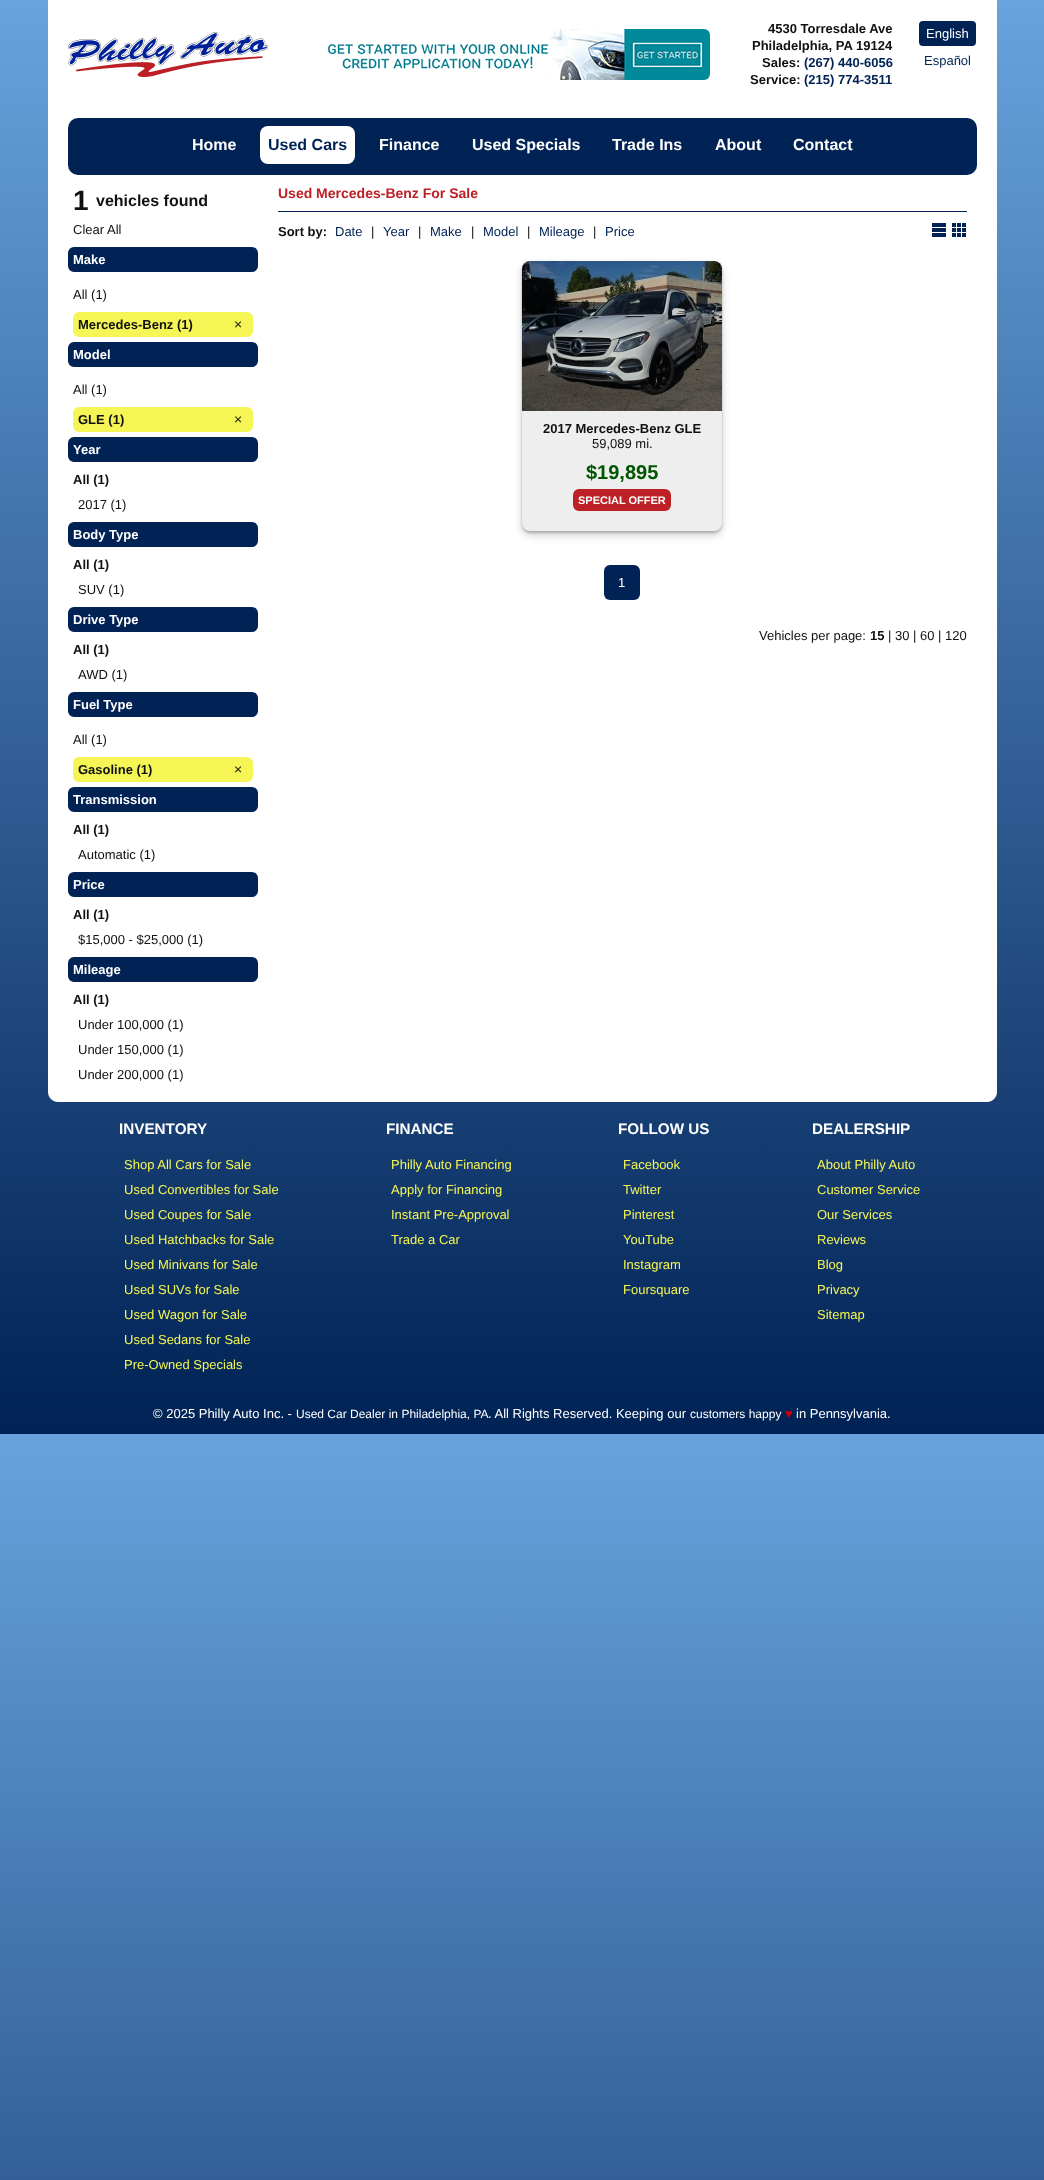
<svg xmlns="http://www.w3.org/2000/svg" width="1044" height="2180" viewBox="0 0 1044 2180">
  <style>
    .t1 { font: bold 13px Liberation Sans; fill: #111; }
    .t2 { font: bold 13px Liberation Sans; fill: #025; }
    .t3 { font: 13px Liberation Sans; fill: #fff; }
    .t4 { font: 13px Liberation Sans; fill: #025; }
    .t5 { font: bold 16px Liberation Sans; fill: #fff; }
    .t6 { font: bold 16px Liberation Sans; fill: #025; }
    .t7 { font: bold 28px Liberation Sans; fill: #111; }
    .t8 { font: bold 16px Liberation Sans; fill: #111; }
    .t9 { font: 13px Liberation Sans; fill: #111; }
    .t10 { font: bold 13px Liberation Sans; fill: #fff; }
    .t11 { font: 14px Liberation Sans; fill: #111; }
    .t12 { font: bold 14px Liberation Sans; fill: #bd2026; }
    .t13 { font: bold 20px Liberation Sans; fill: #050; }
    .t14 { font: bold 11px Liberation Sans; fill: #fff; }
    .t15 { font: bold 15.25px Liberation Sans; fill: #fff; }
    .t16 { font: 13px Liberation Sans; fill: #f5f555; }
    .t17 { font: 12px Liberation Sans; fill: #fff; }
    .t18 { font: 13px Liberation Sans; fill: #c00; }
  </style>
  <defs>
    <linearGradient id="g1" gradientUnits="userSpaceOnUse" x1="522" y1="0" x2="522" y2="1434"><stop offset="0" stop-color="#68a3dd"/><stop offset="1" stop-color="#025"/></linearGradient>
    <linearGradient id="g2" gradientUnits="userSpaceOnUse" x1="522" y1="1434" x2="522" y2="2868"><stop offset="0" stop-color="#68a3dd"/><stop offset="1" stop-color="#025"/></linearGradient>
  </defs>
  <rect width="100%" height="100%" fill="#fff"/>
  <rect x="0" y="0" width="1044" height="1434" fill="url(#g1)"/>
  <rect x="0" y="1434" width="1044" height="746" fill="url(#g2)"/>
  <rect x="48" y="0" width="949" height="108" fill="#fff"/>
  <image x="68" y="32" width="200" height="45" href="images/1.png"/>
  <image x="327" y="29" width="383" height="51" href="images/2.png"/>
  <text x="768" y="33" class="t1">4530 Torresdale Ave</text>
  <text x="752" y="50" class="t1">Philadelphia, PA 19124</text>
  <text x="762" y="67" class="t1">Sales:</text>
  <text x="804" y="67" class="t2">(267) 440-6056</text>
  <text x="750" y="84" class="t1">Service:</text>
  <text x="804" y="84" class="t2">(215) 774-3511</text>
  <rect x="919" y="21" width="57" height="25" rx="4" fill="#025"/>
  <text x="926" y="38" class="t3">English</text>
  <text x="924" y="65" class="t4">Español</text>
  <path d="M48 108H997V1092C997 1097.5 992.5 1102 987 1102H58C52.5 1102 48 1097.5 48 1092Z" fill="#fff"/>
  <rect x="68" y="118" width="909" height="57" rx="10" fill="#025"/>
  <text x="192" y="150" class="t5">Home</text>
  <rect x="260" y="126" width="95" height="38" rx="8" fill="#fff"/>
  <text x="268" y="150" class="t6">Used Cars</text>
  <text x="379" y="150" class="t5">Finance</text>
  <text x="472" y="150" class="t5">Used Specials</text>
  <text x="612" y="150" class="t5">Trade Ins</text>
  <text x="715" y="150" class="t5">About</text>
  <text x="793" y="150" class="t5">Contact</text>
  <text x="73" y="210" class="t7">1</text>
  <text x="96" y="206" class="t8">vehicles found</text>
  <text x="73" y="234" class="t9">Clear All</text>
  <rect x="68" y="247" width="190" height="25" rx="6" fill="#025"/>
  <text x="73" y="264" class="t10">Make</text>
  <text x="73" y="299" class="t9">All (1)</text>
  <rect x="73" y="312" width="180" height="25" rx="6" fill="#f5f555"/>
  <text x="78" y="329" class="t1">Mercedes-Benz (1)</text>
  <text x="234" y="329" class="t11">×</text>
  <rect x="68" y="342" width="190" height="25" rx="6" fill="#025"/>
  <text x="73" y="359" class="t10">Model</text>
  <text x="73" y="394" class="t9">All (1)</text>
  <rect x="73" y="407" width="180" height="25" rx="6" fill="#f5f555"/>
  <text x="78" y="424" class="t1">GLE (1)</text>
  <text x="234" y="424" class="t11">×</text>
  <rect x="68" y="437" width="190" height="25" rx="6" fill="#025"/>
  <text x="73" y="454" class="t10">Year</text>
  <text x="73" y="484" class="t1">All (1)</text>
  <text x="78" y="509" class="t9">2017 (1)</text>
  <rect x="68" y="522" width="190" height="25" rx="6" fill="#025"/>
  <text x="73" y="539" class="t10">Body Type</text>
  <text x="73" y="569" class="t1">All (1)</text>
  <text x="78" y="594" class="t9">SUV (1)</text>
  <rect x="68" y="607" width="190" height="25" rx="6" fill="#025"/>
  <text x="73" y="624" class="t10">Drive Type</text>
  <text x="73" y="654" class="t1">All (1)</text>
  <text x="78" y="679" class="t9">AWD (1)</text>
  <rect x="68" y="692" width="190" height="25" rx="6" fill="#025"/>
  <text x="73" y="709" class="t10">Fuel Type</text>
  <text x="73" y="744" class="t9">All (1)</text>
  <rect x="73" y="757" width="180" height="25" rx="6" fill="#f5f555"/>
  <text x="78" y="774" class="t1">Gasoline (1)</text>
  <text x="234" y="774" class="t11">×</text>
  <rect x="68" y="787" width="190" height="25" rx="6" fill="#025"/>
  <text x="73" y="804" class="t10">Transmission</text>
  <text x="73" y="834" class="t1">All (1)</text>
  <text x="78" y="859" class="t9">Automatic (1)</text>
  <rect x="68" y="872" width="190" height="25" rx="6" fill="#025"/>
  <text x="73" y="889" class="t10">Price</text>
  <text x="73" y="919" class="t1">All (1)</text>
  <text x="78" y="944" class="t9">$15,000 - $25,000 (1)</text>
  <rect x="68" y="957" width="190" height="25" rx="6" fill="#025"/>
  <text x="73" y="974" class="t10">Mileage</text>
  <text x="73" y="1004" class="t1">All (1)</text>
  <text x="78" y="1029" class="t9">Under 100,000 (1)</text>
  <text x="78" y="1054" class="t9">Under 150,000 (1)</text>
  <text x="78" y="1079" class="t9">Under 200,000 (1)</text>
  <rect x="278" y="211" width="689" height="1" fill="#025"/>
  <text x="278" y="198" class="t12">Used Mercedes-Benz For Sale</text>
  <text x="278" y="236" class="t1">Sort by:</text>
  <text x="335" y="236" class="t4">Date</text>
  <text x="371" y="236" class="t9">|</text>
  <text x="383" y="236" class="t4">Year</text>
  <text x="418" y="236" class="t9">|</text>
  <text x="430" y="236" class="t4">Make</text>
  <text x="471" y="236" class="t9">|</text>
  <text x="483" y="236" class="t4">Model</text>
  <text x="527" y="236" class="t9">|</text>
  <text x="539" y="236" class="t4">Mileage</text>
  <text x="593" y="236" class="t9">|</text>
  <text x="605" y="236" class="t4">Price</text>
  <image x="932" y="223" width="14" height="14" href="images/3.png"/>
  <image x="952" y="223" width="14" height="14" href="images/4.png"/>
  <rect x="522" y="265" width="200" height="270" rx="8" fill="#00000030" filter="blur(4px)"/>
  <rect x="522" y="263" width="200" height="270" rx="8" fill="#00000033" filter="blur(1px)"/>
  <rect x="522" y="261" width="200" height="270" rx="8" fill="#eee"/>
  <image x="522" y="261" width="200" height="150" href="images/5.png"/>
  <text x="543" y="433" class="t1">2017 Mercedes-Benz GLE</text>
  <text x="592" y="448" class="t9">59,089 mi.</text>
  <text x="586" y="479" class="t13">$19,895</text>
  <rect x="573" y="489" width="98" height="22" rx="6" fill="#bd2026"/>
  <text x="578" y="504" class="t14">SPECIAL OFFER</text>
  <rect x="604" y="565" width="36" height="35" rx="6" fill="#025"/>
  <text x="618" y="587" class="t3">1</text>
  <text x="759" y="640" class="t9">Vehicles per page:</text>
  <text x="870" y="640" class="t1">15</text>
  <text x="888" y="640" class="t9">| 30 | 60 | 120</text>
  <text x="119" y="1134" class="t15">INVENTORY</text>
  <text x="124" y="1169" class="t16">Shop All Cars for Sale</text>
  <text x="124" y="1194" class="t16">Used Convertibles for Sale</text>
  <text x="124" y="1219" class="t16">Used Coupes for Sale</text>
  <text x="124" y="1244" class="t16">Used Hatchbacks for Sale</text>
  <text x="124" y="1269" class="t16">Used Minivans for Sale</text>
  <text x="124" y="1294" class="t16">Used SUVs for Sale</text>
  <text x="124" y="1319" class="t16">Used Wagon for Sale</text>
  <text x="124" y="1344" class="t16">Used Sedans for Sale</text>
  <text x="124" y="1369" class="t16">Pre-Owned Specials</text>
  <text x="386" y="1134" class="t15">FINANCE</text>
  <text x="391" y="1169" class="t16">Philly Auto Financing</text>
  <text x="391" y="1194" class="t16">Apply for Financing</text>
  <text x="391" y="1219" class="t16">Instant Pre-Approval</text>
  <text x="391" y="1244" class="t16">Trade a Car</text>
  <text x="618" y="1134" class="t15">FOLLOW US</text>
  <text x="623" y="1169" class="t16">Facebook</text>
  <text x="623" y="1194" class="t16">Twitter</text>
  <text x="623" y="1219" class="t16">Pinterest</text>
  <text x="623" y="1244" class="t16">YouTube</text>
  <text x="623" y="1269" class="t16">Instagram</text>
  <text x="623" y="1294" class="t16">Foursquare</text>
  <text x="812" y="1134" class="t15">DEALERSHIP</text>
  <text x="817" y="1169" class="t16">About Philly Auto</text>
  <text x="817" y="1194" class="t16">Customer Service</text>
  <text x="817" y="1219" class="t16">Our Services</text>
  <text x="817" y="1244" class="t16">Reviews</text>
  <text x="817" y="1269" class="t16">Blog</text>
  <text x="817" y="1294" class="t16">Privacy</text>
  <text x="817" y="1319" class="t16">Sitemap</text>
  <text x="153" y="1418" class="t3">© 2025 Philly Auto Inc. -</text>
  <text x="296" y="1418" class="t17">Used Car Dealer in Philadelphia, PA</text>
  <text x="488" y="1418" class="t3">. All Rights Reserved. Keeping our</text>
  <text x="690" y="1418" class="t17">customers happy</text>
  <text x="785" y="1418" class="t18">♥</text>
  <text x="796" y="1418" class="t3">in Pennsylvania.</text>
</svg>
